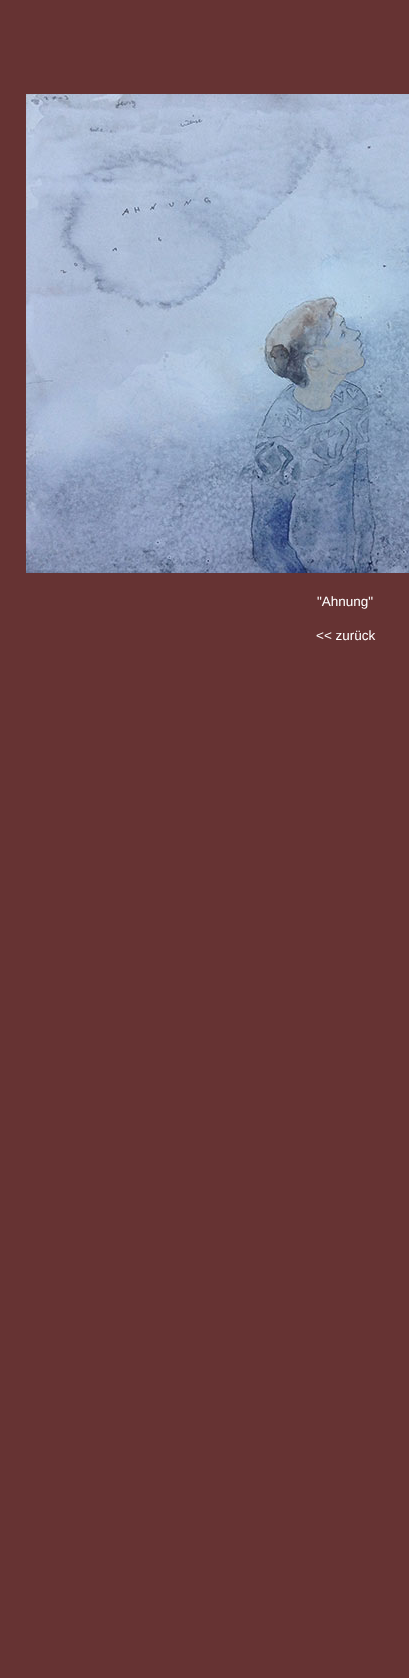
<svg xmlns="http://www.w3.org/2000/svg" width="409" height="1678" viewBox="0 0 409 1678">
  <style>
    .t1 { font: 13.5px Liberation Sans; fill: #fff; }
  </style>
  <rect width="100%" height="100%" fill="#633"/>
  <image x="26" y="94" width="383" height="479" href="images/1.png"/>
  <text x="317" y="606" class="t1">"Ahnung"</text>
  <text x="316" y="640" class="t1">&lt;&lt; zurück</text>
</svg>
